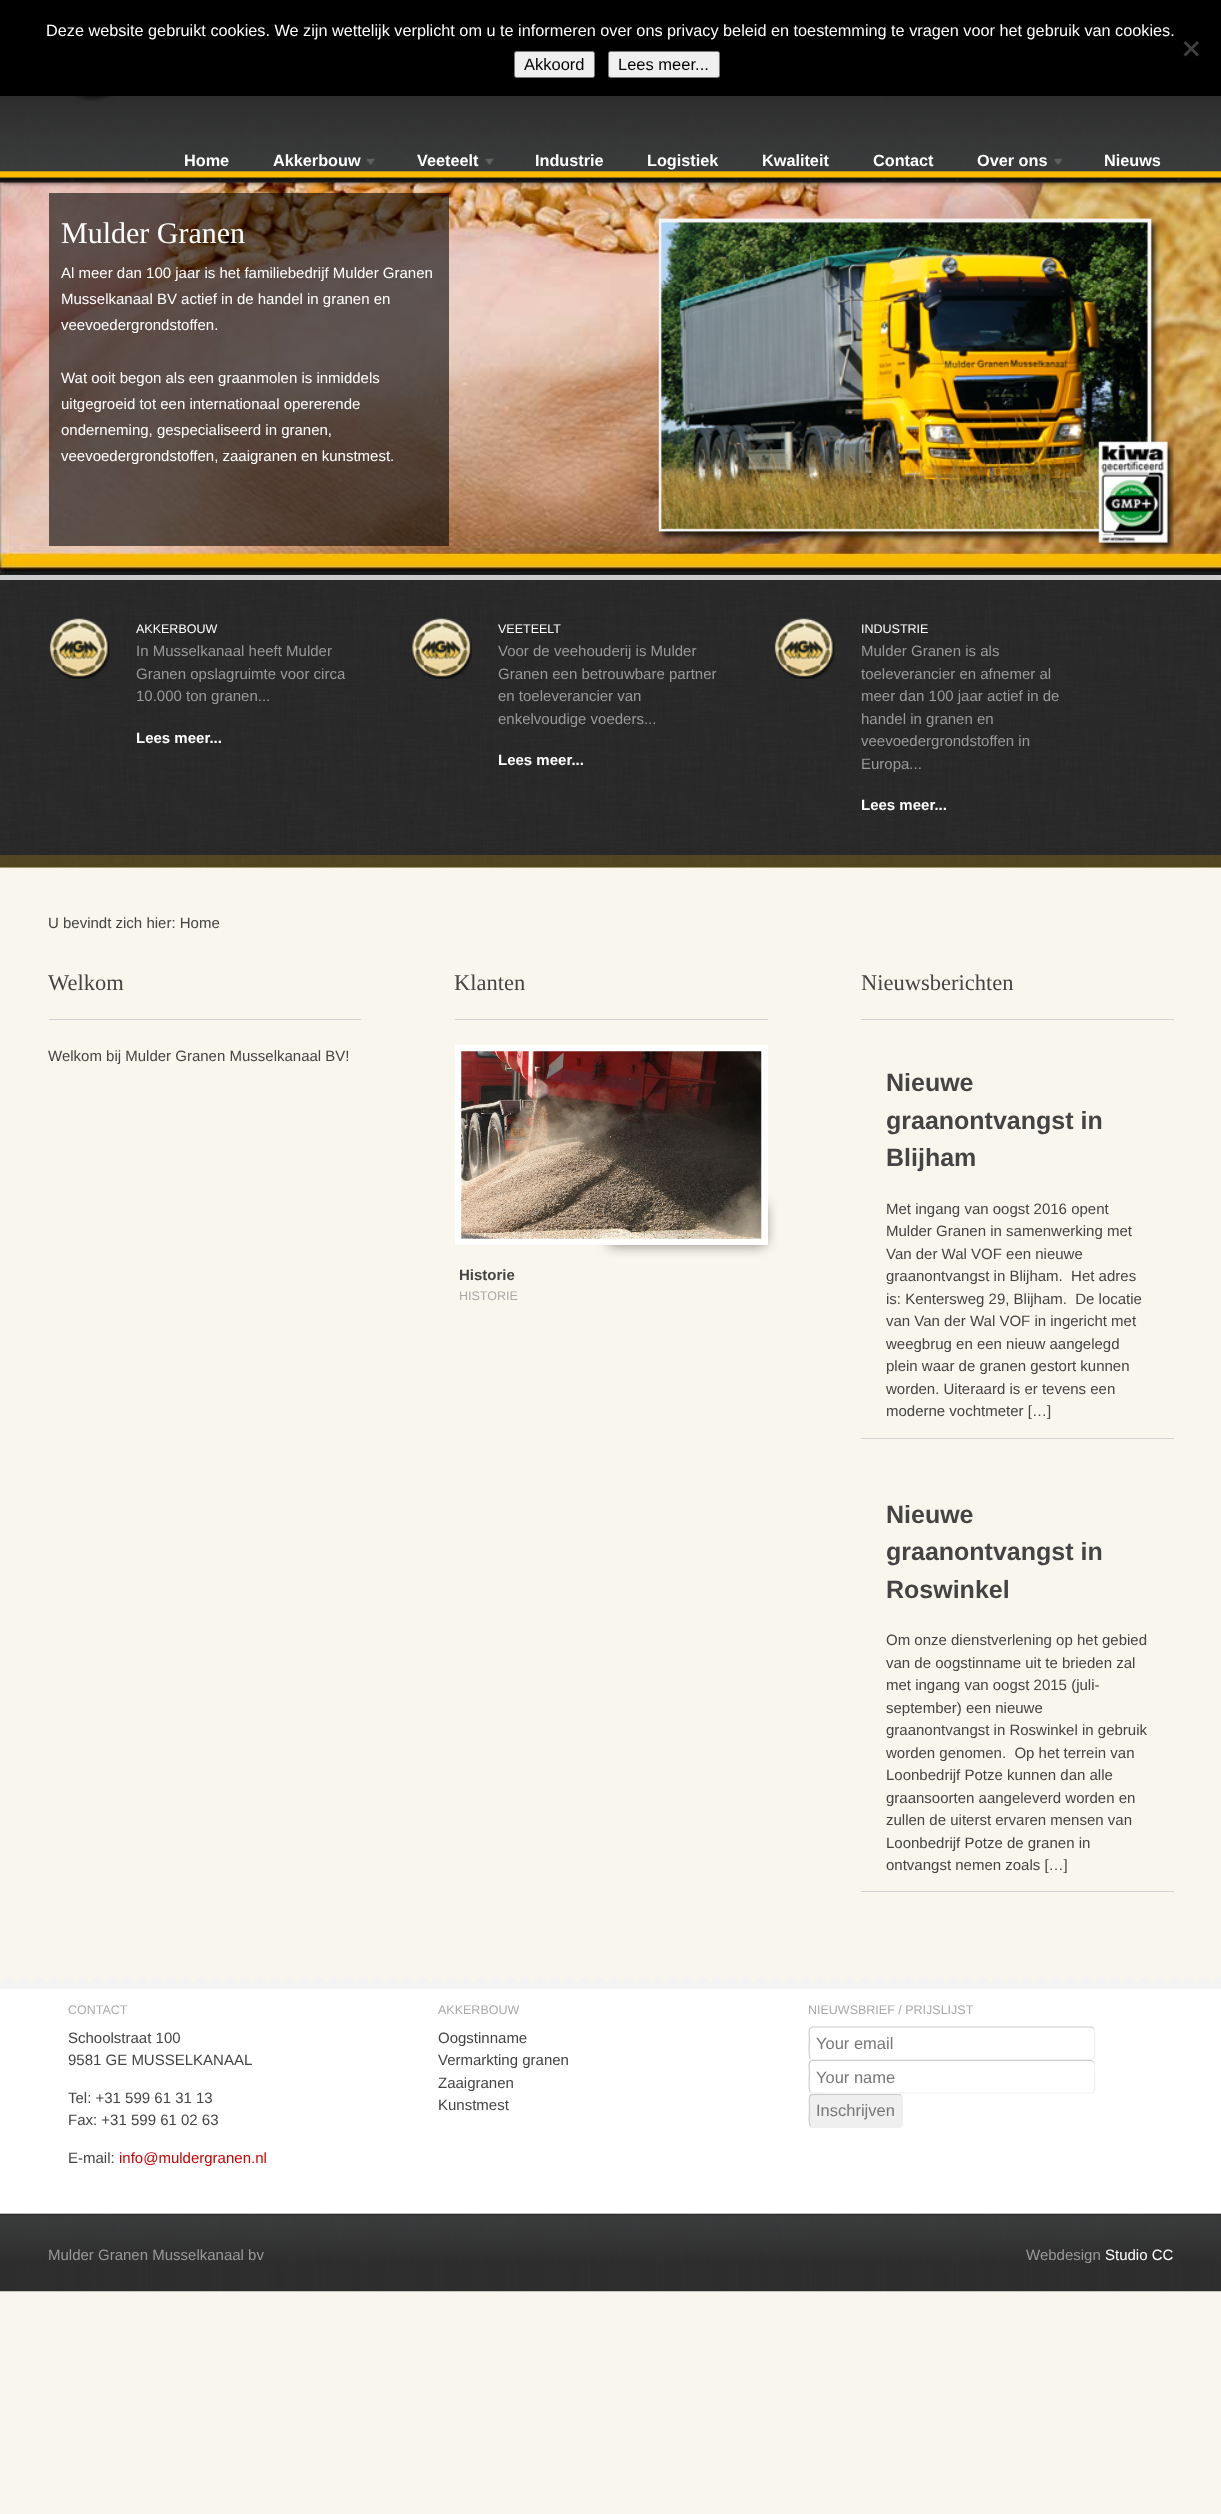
<svg xmlns="http://www.w3.org/2000/svg" width="1221" height="2514" viewBox="0 0 1221 2514">
  <style>
    .t1 { font: 16.25px Liberation Sans; fill: #fff; }
    .t2 { font: 16.5px Liberation Sans; fill: #000; }
    .t3 { font: bold 16.25px Liberation Sans; fill: #fff; }
    .t4 { font: 30px Liberation Serif; fill: #fff; }
    .t5 { font: 15px Liberation Sans; fill: #fff; }
    .t6 { font: 12.5px Liberation Sans; fill: #fff; }
    .t7 { font: 15px Liberation Sans; fill: #999; }
    .t8 { font: bold 15px Liberation Sans; fill: #fff; }
    .t9 { font: 15px Liberation Sans; fill: #444; }
    .t10 { font: 22.5px Liberation Serif; fill: #444; }
    .t11 { font: bold 15px Liberation Sans; fill: #444; }
    .t12 { font: 12.5px Liberation Sans; fill: #aaa8a8; }
    .t13 { font: bold 25px Liberation Sans; fill: #444; }
    .t14 { font: 15px Liberation Sans; fill: #c00; }
    .t15 { font: 16.5px Liberation Sans; fill: #777; }
  </style>
  <rect width="100%" height="100%" fill="#f9f6ed"/>
  <rect x="0" y="0" width="1221" height="96" fill="#000"/>
  <text x="46" y="36" class="t1">Deze website gebruikt cookies. We zijn wettelijk verplicht om u te informeren over ons privacy beleid en toestemming te vragen voor het gebruik van cookies.</text>
  <path d="M1197 41L1199 43L1185.5 56.5L1183.5 54.5Z" fill="#404040"/>
  <path d="M1183.5 43L1185.5 41L1199 54.5L1197 56.5Z" fill="#404040"/>
  <rect x="514.5" y="51.5" width="80" height="26" rx="2" fill="#efefef" stroke="#767676"/>
  <text x="524" y="70" class="t2">Akkoord</text>
  <rect x="608.5" y="51.5" width="111" height="26" rx="2" fill="#efefef" stroke="#767676"/>
  <text x="618" y="70" class="t2">Lees meer...</text>
  <image x="0" y="182" width="1221" height="393" href="images/6.png"/>
  <image x="0" y="96" width="1221" height="87" href="images/1.png"/>
  <image x="72" y="96" width="42" height="5" href="images/2.png"/>
  <text x="184" y="166" class="t3">Home</text>
  <text x="273" y="166" class="t3">Akkerbouw</text>
  <image x="366" y="158" width="9" height="7" href="images/3.png"/>
  <text x="417" y="166" class="t3">Veeteelt</text>
  <image x="485" y="158" width="9" height="7" href="images/4.png"/>
  <text x="535" y="166" class="t3">Industrie</text>
  <text x="647" y="166" class="t3">Logistiek</text>
  <text x="762" y="166" class="t3">Kwaliteit</text>
  <text x="873" y="166" class="t3">Contact</text>
  <text x="977" y="166" class="t3">Over ons</text>
  <image x="1053" y="158" width="10" height="7" href="images/5.png"/>
  <text x="1104" y="166" class="t3">Nieuws</text>
  <rect x="0" y="575" width="1221" height="5" fill="#ccc"/>
  <rect x="49" y="193" width="400" height="353" fill="#00000099"/>
  <text x="61" y="243" class="t4">Mulder Granen</text>
  <text x="61" y="278" class="t5">Al meer dan 100 jaar is het familiebedrijf Mulder Granen</text>
  <text x="61" y="304" class="t5">Musselkanaal BV actief in de handel in granen en</text>
  <text x="61" y="330" class="t5">veevoedergrondstoffen.</text>
  <text x="61" y="383" class="t5">Wat ooit begon als een graanmolen is inmiddels</text>
  <text x="61" y="409" class="t5">uitgegroeid tot een internationaal opererende</text>
  <text x="61" y="435" class="t5">onderneming, gespecialiseerd in granen,</text>
  <text x="61" y="461" class="t5">veevoedergrondstoffen, zaaigranen en kunstmest.</text>
  <image x="658" y="218" width="516" height="334" href="images/7.png"/>
  <image x="0" y="580" width="1221" height="288" href="images/8.png"/>
  <rect x="0" y="855" width="1221" height="13" fill="#f4b60333"/>
  <image x="49" y="618" width="61" height="61" href="images/9.png"/>
  <text x="136" y="633" class="t6">AKKERBOUW</text>
  <text x="136" y="656" class="t7">In Musselkanaal heeft Mulder</text>
  <text x="136" y="679" class="t7">Granen opslagruimte voor circa</text>
  <text x="136" y="701" class="t7">10.000 ton granen...</text>
  <text x="136" y="743" class="t8">Lees meer...</text>
  <image x="412" y="618" width="60" height="61" href="images/10.png"/>
  <text x="498" y="633" class="t6">VEETEELT</text>
  <text x="498" y="656" class="t7">Voor de veehouderij is Mulder</text>
  <text x="498" y="679" class="t7">Granen een betrouwbare partner</text>
  <text x="498" y="701" class="t7">en toeleverancier van</text>
  <text x="498" y="724" class="t7">enkelvoudige voeders...</text>
  <text x="498" y="765" class="t8">Lees meer...</text>
  <image x="774" y="618" width="61" height="61" href="images/11.png"/>
  <text x="861" y="633" class="t6">INDUSTRIE</text>
  <text x="861" y="656" class="t7">Mulder Granen is als</text>
  <text x="861" y="679" class="t7">toeleverancier en afnemer al</text>
  <text x="861" y="701" class="t7">meer dan 100 jaar actief in de</text>
  <text x="861" y="724" class="t7">handel in granen en</text>
  <text x="861" y="746" class="t7">veevoedergrondstoffen in</text>
  <text x="861" y="769" class="t7">Europa...</text>
  <text x="861" y="810" class="t8">Lees meer...</text>
  <text x="48" y="928" class="t9">U bevindt zich hier: Home</text>
  <rect x="49" y="1019" width="312" height="1" fill="#d3d3d3"/>
  <text x="48" y="990" class="t10">Welkom</text>
  <text x="48" y="1061" class="t9">Welkom bij Mulder Granen Musselkanaal BV!</text>
  <rect x="455" y="1019" width="313" height="1" fill="#d3d3d3"/>
  <text x="454" y="990" class="t10">Klanten</text>
  <rect x="609" y="1205" width="156" height="40" fill="#00000080" filter="blur(6.5px)"/>
  <rect x="455" y="1045" width="313" height="200" fill="#fff"/>
  <image x="461" y="1051" width="301" height="188" href="images/12.png"/>
  <text x="459" y="1280" class="t11">Historie</text>
  <text x="459" y="1300" class="t12">HISTORIE</text>
  <rect x="861" y="1019" width="313" height="1" fill="#d3d3d3"/>
  <text x="861" y="990" class="t10">Nieuwsberichten</text>
  <text x="886" y="1091" class="t13">Nieuwe</text>
  <text x="886" y="1129" class="t13">graanontvangst in</text>
  <text x="886" y="1166" class="t13">Blijham</text>
  <rect x="861" y="1438" width="313" height="1" fill="#d3d3d3"/>
  <text x="886" y="1214" class="t9">Met ingang van oogst 2016 opent</text>
  <text x="886" y="1236" class="t9">Mulder Granen in samenwerking met</text>
  <text x="886" y="1259" class="t9">Van der Wal VOF een nieuwe</text>
  <text x="886" y="1281" class="t9" xml:space="preserve">graanontvangst in Blijham.  Het adres</text>
  <text x="886" y="1304" class="t9" xml:space="preserve">is: Kentersweg 29, Blijham.  De locatie</text>
  <text x="886" y="1326" class="t9">van Van der Wal VOF in ingericht met</text>
  <text x="886" y="1349" class="t9">weegbrug en een nieuw aangelegd</text>
  <text x="886" y="1371" class="t9">plein waar de granen gestort kunnen</text>
  <text x="886" y="1394" class="t9">worden. Uiteraard is er tevens een</text>
  <text x="886" y="1416" class="t9">moderne vochtmeter […]</text>
  <text x="886" y="1523" class="t13">Nieuwe</text>
  <text x="886" y="1560" class="t13">graanontvangst in</text>
  <text x="886" y="1598" class="t13">Roswinkel</text>
  <rect x="861" y="1891" width="313" height="1" fill="#d3d3d3"/>
  <text x="886" y="1645" class="t9">Om onze dienstverlening op het gebied</text>
  <text x="886" y="1668" class="t9">van de oogstinname uit te brieden zal</text>
  <text x="886" y="1690" class="t9">met ingang van oogst 2015 (juli-</text>
  <text x="886" y="1713" class="t9">september) een nieuwe</text>
  <text x="886" y="1735" class="t9">graanontvangst in Roswinkel in gebruik</text>
  <text x="886" y="1758" class="t9" xml:space="preserve">worden genomen.  Op het terrein van</text>
  <text x="886" y="1780" class="t9">Loonbedrijf Potze kunnen dan alle</text>
  <text x="886" y="1803" class="t9">graansoorten aangeleverd worden en</text>
  <text x="886" y="1825" class="t9">zullen de uiterst ervaren mensen van</text>
  <text x="886" y="1848" class="t9">Loonbedrijf Potze de granen in</text>
  <text x="886" y="1870" class="t9">ontvangst nemen zoals […]</text>
  <image x="0" y="1976" width="1221" height="236" href="images/13.png"/>
  <text x="68" y="2014" class="t12">CONTACT</text>
  <text x="68" y="2043" class="t9">Schoolstraat 100</text>
  <text x="68" y="2065" class="t9">9581 GE MUSSELKANAAL</text>
  <text x="68" y="2103" class="t9">Tel: +31 599 61 31 13</text>
  <text x="68" y="2125" class="t9">Fax: +31 599 61 02 63</text>
  <text x="68" y="2163" class="t9">E-mail:</text>
  <text x="119" y="2163" class="t14">info@muldergranen.nl</text>
  <text x="438" y="2014" class="t12">AKKERBOUW</text>
  <text x="438" y="2043" class="t9">Oogstinname</text>
  <text x="438" y="2065" class="t9">Vermarkting granen</text>
  <text x="438" y="2088" class="t9">Zaaigranen</text>
  <text x="438" y="2110" class="t9">Kunstmest</text>
  <text x="808" y="2014" class="t12">NIEUWSBRIEF / PRIJSLIJST</text>
  <path d="M1093.5 2028C1095.5 2030 1094.5 2044 1094.5 2047.5C1094.5 2049.5 1096.5 2059.5 1091 2059.5H812.5L810.5 2058.5" fill="none" stroke="#efefef" stroke-width="1.2"/>
  <path d="M810.5 2058.5C808 2056.5 809.5 2042 809.5 2039C809.5 2036.5 807.5 2027 812.5 2027H1091L1093.5 2028" fill="none" stroke="#ccc" stroke-width="1.2"/>
  <text x="816" y="2049" class="t15">Your email</text>
  <path d="M1093.5 2061.5C1095.5 2063.5 1094.5 2078 1094.5 2081C1094.5 2083.5 1096.5 2093 1091 2093H812.5L810.5 2092" fill="none" stroke="#efefef" stroke-width="1.2"/>
  <path d="M810.5 2092C808 2090 809.5 2076 809.5 2072.5C809.5 2070.5 807.5 2060.5 812.5 2060.5H1091L1093.5 2061.5" fill="none" stroke="#ccc" stroke-width="1.2"/>
  <text x="816" y="2083" class="t15">Your name</text>
  <rect x="809" y="2094" width="94" height="34" rx="4" fill="#efefef"/>
  <path d="M810.5 2126C808 2124 809.5 2113.5 809.5 2110.5C809.5 2091 806 2094.5 827 2094.5H899L901 2095.5" fill="none" stroke="#ccc" stroke-width="1.2"/>
  <text x="816" y="2116" class="t15">Inschrijven</text>
  <image x="0" y="2212" width="1221" height="80" href="images/14.png"/>
  <text x="48" y="2260" class="t7">Mulder Granen Musselkanaal bv</text>
  <text x="1026" y="2260" class="t7">Webdesign</text>
  <text x="1105" y="2260" class="t5">Studio CC</text>
</svg>
